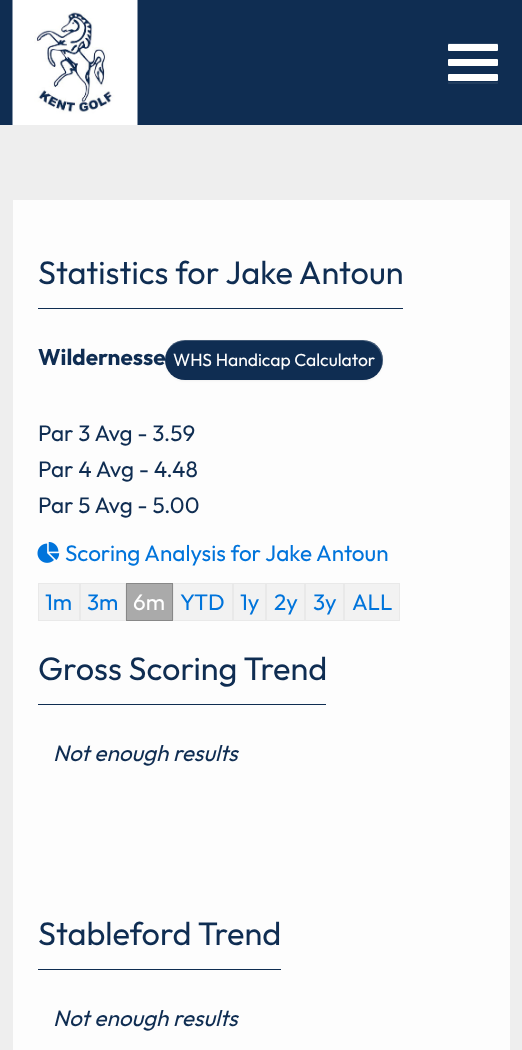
<svg xmlns="http://www.w3.org/2000/svg" width="522" height="1050" viewBox="0 0 522 1050">
  <style>
    .t1 { font: 32.5px Outfit; fill: #0f2d52; }
    .t2 { font: bold 22.5px Outfit; fill: #0f2d52; }
    .t3 { font: 17.5px Outfit; fill: #fff; }
    .t4 { font: 22.5px Outfit; fill: #0f2d52; }
    .t5 { font: 22.5px Outfit; fill: #0074db; }
    .t6 { font: 22.5px Outfit; fill: #fff; }
    .t7 { font: italic 22.5px Outfit; fill: #0f2d52; }
  </style>
  <rect width="100%" height="100%" fill="#eee"/>
  <rect x="0" y="0" width="522" height="125" fill="#0f2d52"/>
  <image x="12" y="0" width="126" height="125" href="images/1.png"/>
  <path d="M448 82V84H498V44V82Z" fill="#213d5f"/>
  <rect x="448" y="43" width="50" height="1" fill="#274263"/>
  <rect x="448" y="44" width="50" height="7" rx="1" fill="#fff"/>
  <rect x="448" y="59" width="50" height="7" rx="1" fill="#fff"/>
  <rect x="448" y="74" width="50" height="7" rx="1" fill="#fff"/>
  <rect x="13" y="200" width="497" height="850" fill="#fdfdfd"/>
  <rect x="38" y="308" width="365" height="1" fill="#0f2d52"/>
  <text x="38" y="284" class="t1">Statistics for Jake Antoun</text>
  <text x="38" y="365" class="t2">Wildernesse</text>
  <rect x="165" y="341" width="218" height="40" rx="20" fill="#0000000d" filter="blur(1px)"/>
  <rect x="165" y="340" width="218" height="40" rx="20" fill="#0f2d52"/>
  <path d="M185 341H362C374 341 382 350 382 361C382 365 381 369 379 372C381 369 383 365 383 360C383 349 374 340 363 340H185C174 340 165 349 165 360V361C165 350 174 341 185 341Z" fill="#ffffff33"/>
  <text x="173" y="366" class="t3">WHS Handicap Calculator</text>
  <text x="38" y="441" class="t4">Par 3 Avg - 3.59</text>
  <text x="38" y="477" class="t4">Par 4 Avg - 4.48</text>
  <text x="38" y="513" class="t4">Par 5 Avg - 5.00</text>
  <image x="37" y="542" width="23" height="21" href="images/2.png"/>
  <text x="65" y="561" class="t5">Scoring Analysis for Jake Antoun</text>
  <rect x="38.5" y="583.5" width="41" height="37" fill="#f2f2f2" stroke="#e9e9e9"/>
  <text x="45" y="610" class="t5">1m</text>
  <rect x="80.5" y="583.5" width="45" height="37" fill="#f2f2f2" stroke="#e9e9e9"/>
  <text x="87" y="610" class="t5">3m</text>
  <rect x="126.5" y="583.5" width="46" height="37" fill="#aaa" stroke="#888"/>
  <text x="133" y="610" class="t6">6m</text>
  <rect x="173.5" y="583.5" width="59" height="37" fill="#f2f2f2" stroke="#e9e9e9"/>
  <text x="180" y="610" class="t5">YTD</text>
  <rect x="233.5" y="583.5" width="32" height="37" fill="#f2f2f2" stroke="#e9e9e9"/>
  <text x="240" y="610" class="t5">1y</text>
  <rect x="266.5" y="583.5" width="38" height="37" fill="#f2f2f2" stroke="#e9e9e9"/>
  <text x="274" y="610" class="t5">2y</text>
  <rect x="305.5" y="583.5" width="38" height="37" fill="#f2f2f2" stroke="#e9e9e9"/>
  <text x="313" y="610" class="t5">3y</text>
  <rect x="344.5" y="583.5" width="55" height="37" fill="#f2f2f2" stroke="#e9e9e9"/>
  <text x="352" y="610" class="t5">ALL</text>
  <rect x="38" y="704" width="288" height="1" fill="#0f2d52"/>
  <text x="38" y="680" class="t1">Gross Scoring Trend</text>
  <text x="53" y="761" class="t7">Not enough results</text>
  <rect x="38" y="969" width="243" height="1" fill="#0f2d52"/>
  <text x="38" y="945" class="t1">Stableford Trend</text>
  <text x="53" y="1026" class="t7">Not enough results</text>
</svg>
